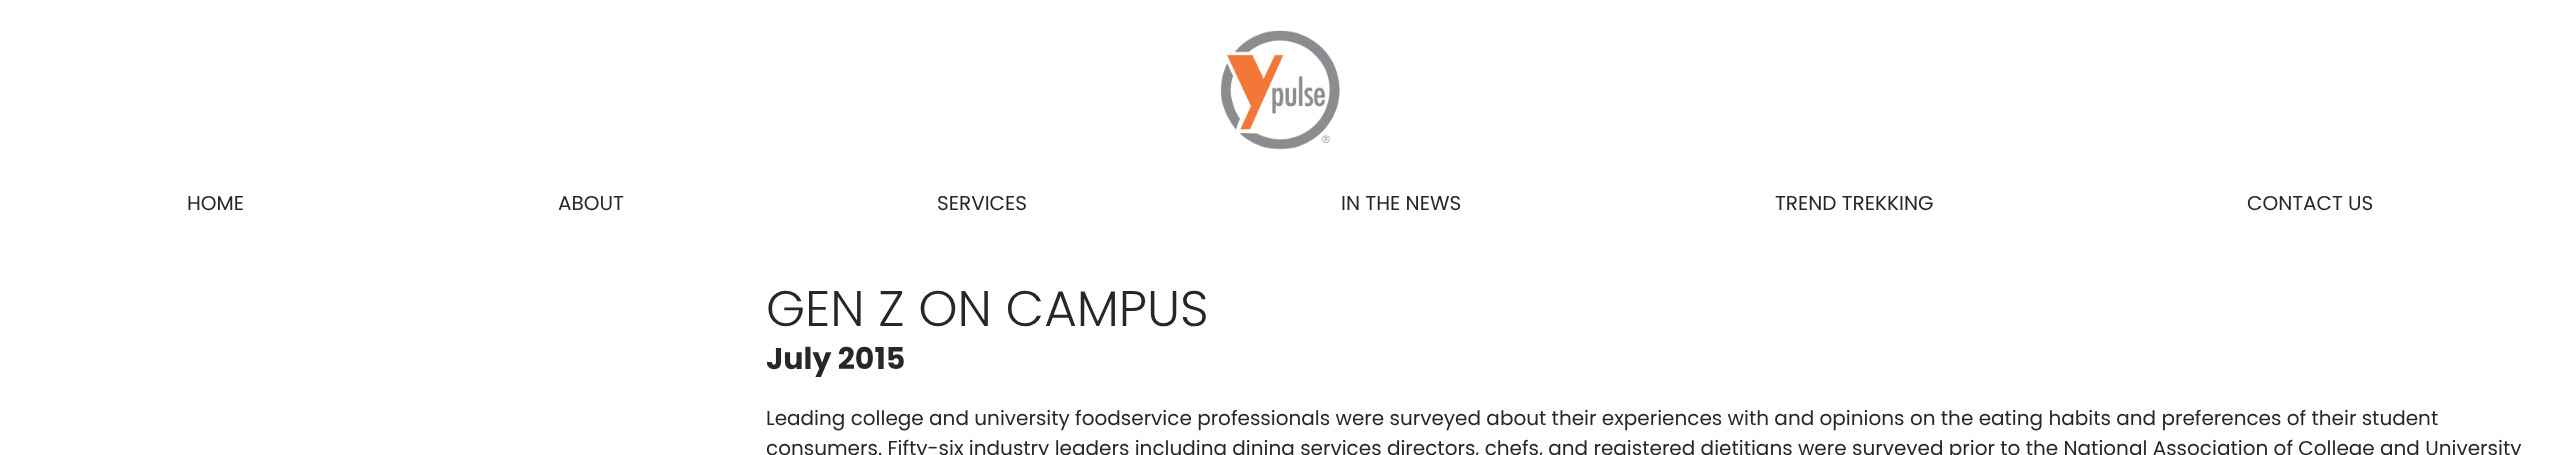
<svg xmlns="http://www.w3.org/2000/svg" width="2560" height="455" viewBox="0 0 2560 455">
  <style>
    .t1 { font: 20px Poppins; fill: #272727; }
    .t2 { font: 300 50px Poppins; fill: #272727; }
    .t3 { font: bold 30px Poppins; fill: #272727; }
  </style>
  <rect width="100%" height="100%" fill="#fff"/>
  <image x="1220" y="30" width="120" height="120" href="images/1.png"/>
  <text x="187" y="210" class="t1">HOME</text>
  <text x="558" y="210" class="t1">ABOUT</text>
  <text x="937" y="210" class="t1">SERVICES</text>
  <text x="1341" y="210" class="t1">IN THE NEWS</text>
  <text x="1775" y="210" class="t1">TREND TREKKING</text>
  <text x="2247" y="210" class="t1">CONTACT US</text>
  <text x="766" y="326" class="t2">GEN Z ON CAMPUS</text>
  <text x="766" y="369" class="t3">July 2015</text>
  <text x="766" y="425" class="t1">Leading college and university foodservice professionals were surveyed about their experiences with and opinions on the eating habits and preferences of their student</text>
  <text x="766" y="455" class="t1">consumers. Fifty-six industry leaders including dining services directors, chefs, and registered dietitians were surveyed prior to the National Association of College and University</text>
</svg>
